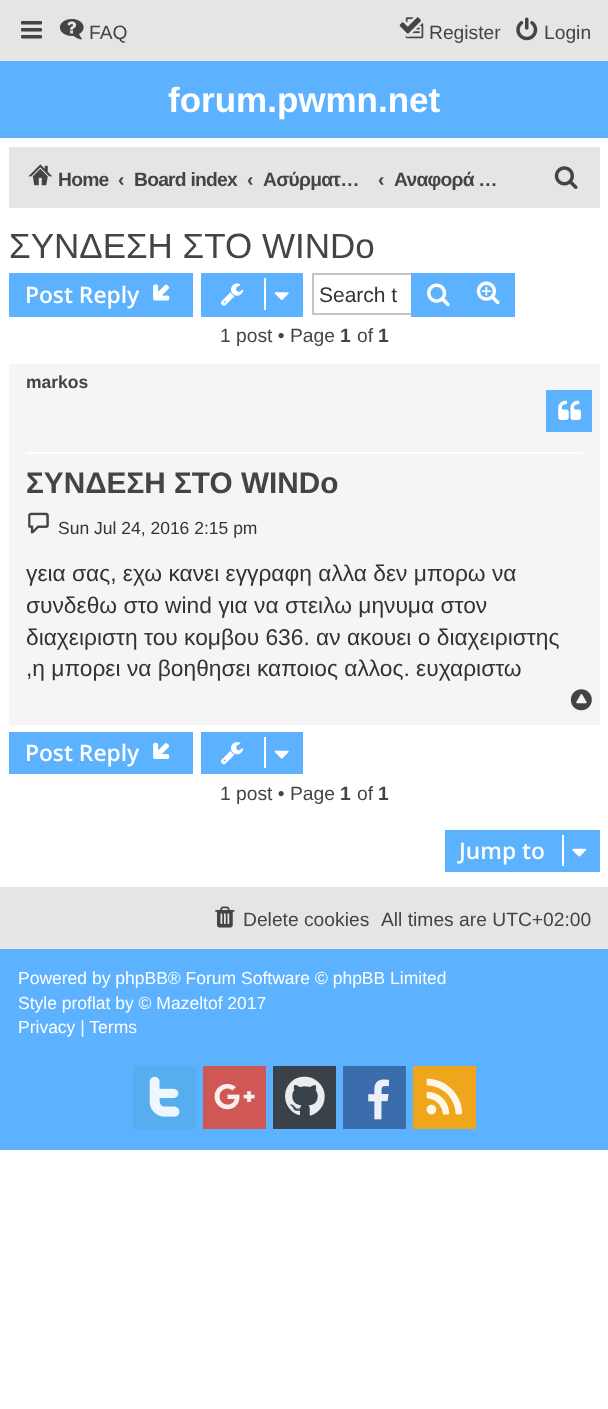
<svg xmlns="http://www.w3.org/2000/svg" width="608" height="1409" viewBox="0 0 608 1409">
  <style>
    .t1 { font: 19.25px Liberation Sans; fill: #444; }
    .t2 { font: bold 35px Liberation Sans; fill: #fff; }
    .t3 { font: bold 19.25px Liberation Sans; letter-spacing: -0.75px; fill: #444; }
    .t4 { font: bold 19.25px Liberation Sans; fill: #444; }
    .t5 { font: 35px Liberation Sans; fill: #444; }
    .t6 { font: 600 22.75px Open Sans; fill: #fff; }
    .t7 { font: 21px Liberation Sans; fill: #333; }
    .t8 { font: bold 17.5px Liberation Sans; fill: #444; }
    .t9 { font: bold 29.75px Liberation Sans; fill: #444; }
    .t10 { font: 17.5px Liberation Sans; fill: #333; }
    .t11 { font: 22.75px Liberation Sans; fill: #333; }
    .t12 { font: 17.5px Liberation Sans; fill: #fff; }
  </style>
  <rect width="100%" height="100%" fill="#fff"/>
  <rect x="0" y="0" width="608" height="61" fill="#e5e5e5"/>
  <image x="21" y="21" width="21" height="18" href="images/1.png"/>
  <image x="59" y="18" width="25" height="22" href="images/2.png"/>
  <text x="89" y="39" class="t1">FAQ</text>
  <image x="399" y="17" width="25" height="22" href="images/3.png"/>
  <text x="429" y="39" class="t1">Register</text>
  <image x="516" y="17" width="22" height="24" href="images/4.png"/>
  <text x="544" y="39" class="t1">Login</text>
  <rect x="0" y="61" width="608" height="77" fill="#5db2ff"/>
  <text x="168" y="112" class="t2">forum.pwmn.net</text>
  <rect x="9" y="147" width="591" height="61" fill="#e5e5e5"/>
  <image x="28" y="164" width="24" height="22" href="images/5.png"/>
  <text x="58" y="186" class="t3">Home</text>
  <text x="118" y="186" class="t4">‹</text>
  <text x="134" y="186" class="t3">Board index</text>
  <text x="247" y="186" class="t4">‹</text>
  <text x="263" y="186" class="t3">Ασύρματ…</text>
  <text x="378" y="186" class="t4">‹</text>
  <text x="394" y="186" class="t3">Αναφορά …</text>
  <image x="554" y="166" width="24" height="23" href="images/6.png"/>
  <text x="9" y="258" class="t5">ΣΥΝΔΕΣΗ ΣΤΟ WINDo</text>
  <rect x="9" y="273" width="184" height="44" fill="#5db2ff"/>
  <text x="25" y="303" class="t6">Post Reply</text>
  <image x="153" y="284" width="17" height="17" href="images/7.png"/>
  <rect x="201" y="273" width="102" height="44" fill="#5db2ff"/>
  <image x="220" y="283" width="24" height="23" href="images/8.png"/>
  <rect x="264" y="278" width="2" height="32" fill="#fff"/>
  <image x="274" y="292" width="15" height="9" href="images/9.png"/>
  <rect x="312" y="273" width="99" height="2" fill="#c7c3bf"/>
  <rect x="312" y="313" width="99" height="2" fill="#c7c3bf"/>
  <rect x="312" y="273" width="2" height="42" fill="#c7c3bf"/>
  <text x="319" y="302" class="t7">Search t</text>
  <rect x="411" y="273" width="53" height="44" fill="#5db2ff"/>
  <image x="427" y="283" width="23" height="24" href="images/10.png"/>
  <rect x="464" y="275" width="49" height="40" fill="#5db2ff"/>
  <rect x="464" y="273" width="51" height="2" fill="#5db2ff"/>
  <rect x="513" y="273" width="2" height="44" fill="#5db2ff"/>
  <rect x="464" y="315" width="51" height="2" fill="#5db2ff"/>
  <image x="476" y="281" width="24" height="24" href="images/11.png"/>
  <text x="220" y="342" class="t1">1 post • Page</text>
  <text x="340" y="342" class="t4">1</text>
  <text x="357" y="342" class="t1">of</text>
  <text x="378" y="342" class="t4">1</text>
  <rect x="9" y="364" width="591" height="361" fill="#f5f5f5"/>
  <rect x="26" y="452" width="557" height="2" fill="#fff"/>
  <text x="26" y="388" class="t8">markos</text>
  <rect x="546" y="390" width="46" height="42" fill="#5db2ff"/>
  <image x="558" y="400" width="23" height="20" href="images/12.png"/>
  <text x="26" y="493" class="t9">ΣΥΝΔΕΣΗ ΣΤΟ WINDo</text>
  <image x="28" y="512" width="21" height="22" href="images/13.png"/>
  <text x="58" y="534" class="t10">Sun Jul 24, 2016 2:15 pm</text>
  <text x="26" y="581" class="t11">γεια σας, εχω κανει εγγραφη αλλα δεν μπορω να</text>
  <text x="26" y="613" class="t11">συνδεθω στο wind για να στειλω μηνυμα στον</text>
  <text x="26" y="645" class="t11">διαχειριστη του κομβου 636. αν ακουει ο διαχειριστης</text>
  <text x="26" y="676" class="t11">,η μπορει να βοηθησει καποιος αλλος. ευχαριστω</text>
  <image x="570" y="689" width="22" height="22" href="images/14.png"/>
  <rect x="9" y="732" width="184" height="42" fill="#5db2ff"/>
  <text x="25" y="761" class="t6">Post Reply</text>
  <image x="153" y="742" width="17" height="17" href="images/15.png"/>
  <rect x="201" y="732" width="102" height="42" fill="#5db2ff"/>
  <image x="220" y="742" width="24" height="23" href="images/16.png"/>
  <rect x="264" y="737" width="2" height="31" fill="#fff"/>
  <image x="274" y="750" width="15" height="9" href="images/17.png"/>
  <text x="220" y="800" class="t1">1 post • Page</text>
  <text x="340" y="800" class="t4">1</text>
  <text x="357" y="800" class="t1">of</text>
  <text x="378" y="800" class="t4">1</text>
  <rect x="445" y="830" width="155" height="42" fill="#5db2ff"/>
  <text x="459" y="859" class="t6">Jump to</text>
  <rect x="562" y="835" width="2" height="31" fill="#fff"/>
  <image x="572" y="848" width="15" height="9" href="images/18.png"/>
  <rect x="0" y="887" width="608" height="62" fill="#e5e5e5"/>
  <image x="215" y="906" width="20" height="22" href="images/19.png"/>
  <text x="243" y="926" class="t1">Delete cookies</text>
  <text x="381" y="926" class="t1">All times are UTC+02:00</text>
  <rect x="0" y="949" width="608" height="201" fill="#5db2ff"/>
  <text x="18" y="984" class="t12">Powered by phpBB® Forum Software © phpBB Limited</text>
  <text x="18" y="1009" class="t12">Style proflat by © Mazeltof 2017</text>
  <text x="18" y="1033" class="t12">Privacy | Terms</text>
  <rect x="133" y="1066" width="63" height="63" fill="#56adf0"/>
  <image x="149" y="1076" width="31" height="41" href="images/20.png"/>
  <rect x="203" y="1066" width="63" height="63" fill="#cf5854"/>
  <image x="214" y="1083" width="41" height="27" href="images/21.png"/>
  <rect x="273" y="1066" width="63" height="63" fill="#394249"/>
  <image x="285" y="1076" width="40" height="40" href="images/22.png"/>
  <rect x="343" y="1066" width="63" height="63" fill="#3b6dac"/>
  <image x="368" y="1079" width="21" height="41" href="images/23.png"/>
  <rect x="413" y="1066" width="63" height="63" fill="#efa61a"/>
  <image x="426" y="1078" width="37" height="37" href="images/24.png"/>
</svg>
